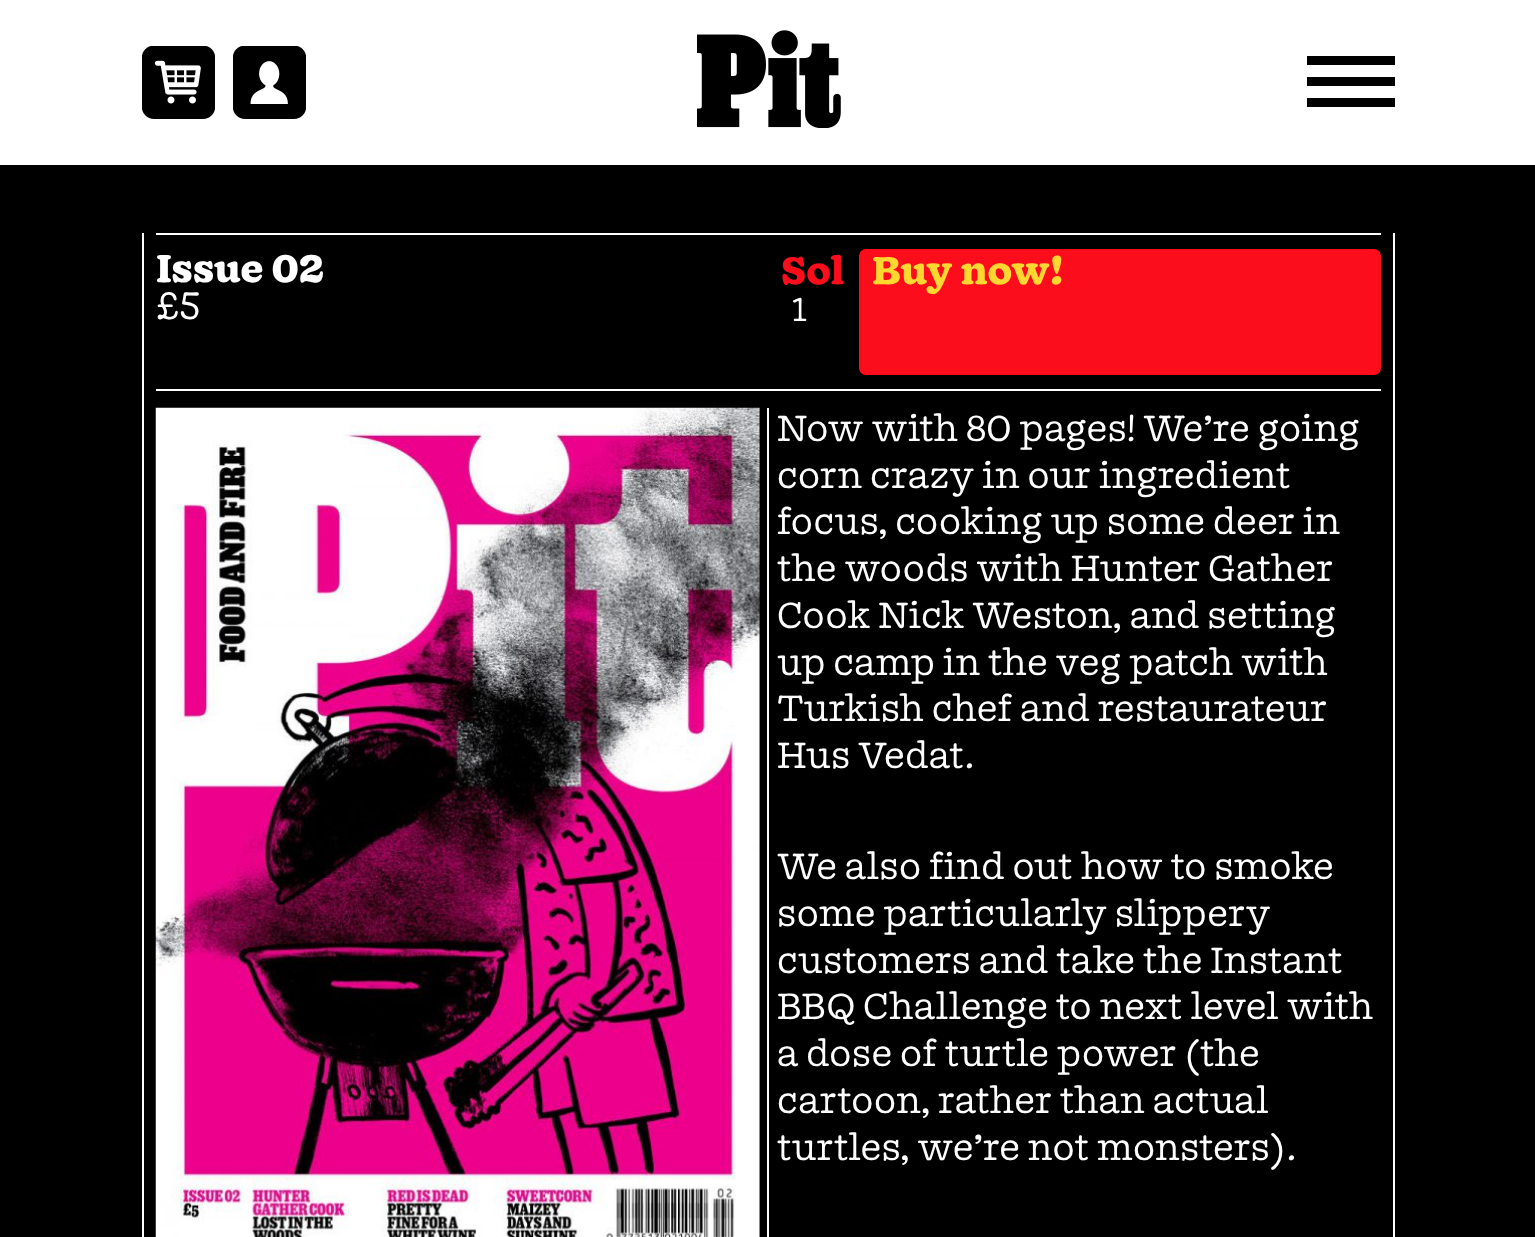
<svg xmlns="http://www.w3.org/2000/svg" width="1535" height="1237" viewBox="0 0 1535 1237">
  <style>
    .t1 { font: bold 37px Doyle; fill: #fff; }
    .t2 { font: bold 37px Doyle; fill: #fc0d1b; }
    .t3 { font: bold 37px Doyle; fill: #fed731; }
    .t4 { font: 300 32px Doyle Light; fill: #fff; }
    .t5 { font: 300 37px Doyle Light; fill: #fff; }
    .t6 { font: 300 35.25px Doyle Light; fill: #fff; }
  </style>
  <rect width="100%" height="100%" fill="#000"/>
  <rect x="0" y="0" width="1535" height="165" fill="#fff"/>
  <image x="142" y="46" width="73" height="73" href="images/1.png"/>
  <image x="233" y="46" width="73" height="73" href="images/2.png"/>
  <image x="697" y="30" width="144" height="98" href="images/3.png"/>
  <rect x="1307" y="56" width="88" height="9" fill="#000"/>
  <rect x="1307" y="77" width="88" height="9" fill="#000"/>
  <rect x="1307" y="98" width="88" height="9" fill="#000"/>
  <rect x="1393" y="233" width="2" height="1004" fill="#fff"/>
  <rect x="142" y="233" width="2" height="1004" fill="#fff"/>
  <rect x="156" y="233" width="1225" height="2" fill="#fff"/>
  <rect x="156" y="389" width="1225" height="2" fill="#fff"/>
  <text x="156" y="282" class="t1">Issue 02</text>
  <text x="781" y="284" class="t2">Sol</text>
  <rect x="859" y="249" width="522" height="126" rx="7" fill="#fc0d1b"/>
  <text x="872" y="284" class="t3">Buy now!</text>
  <text x="792" y="321" class="t4">1</text>
  <text x="156" y="319" class="t5">£5</text>
  <rect x="759" y="408" width="1" height="829" fill="#111"/>
  <image x="155" y="407" width="605" height="830" href="images/4.png"/>
  <rect x="767" y="408" width="2" height="829" fill="#fff"/>
  <text x="777" y="441" class="t6">Now with 80 pages! We’re going</text>
  <text x="777" y="488" class="t6">corn crazy in our ingredient</text>
  <text x="777" y="534" class="t6">focus, cooking up some deer in</text>
  <text x="777" y="581" class="t6">the woods with Hunter Gather</text>
  <text x="777" y="628" class="t6">Cook Nick Weston, and setting</text>
  <text x="777" y="675" class="t6">up camp in the veg patch with</text>
  <text x="777" y="721" class="t6">Turkish chef and restaurateur</text>
  <text x="777" y="768" class="t6">Hus Vedat.</text>
  <text x="777" y="879" class="t6">We also find out how to smoke</text>
  <text x="777" y="926" class="t6">some particularly slippery</text>
  <text x="777" y="973" class="t6">customers and take the Instant</text>
  <text x="777" y="1019" class="t6">BBQ Challenge to next level with</text>
  <text x="777" y="1066" class="t6">a dose of turtle power (the</text>
  <text x="777" y="1113" class="t6">cartoon, rather than actual</text>
  <text x="777" y="1160" class="t6">turtles, we’re not monsters).</text>
</svg>
